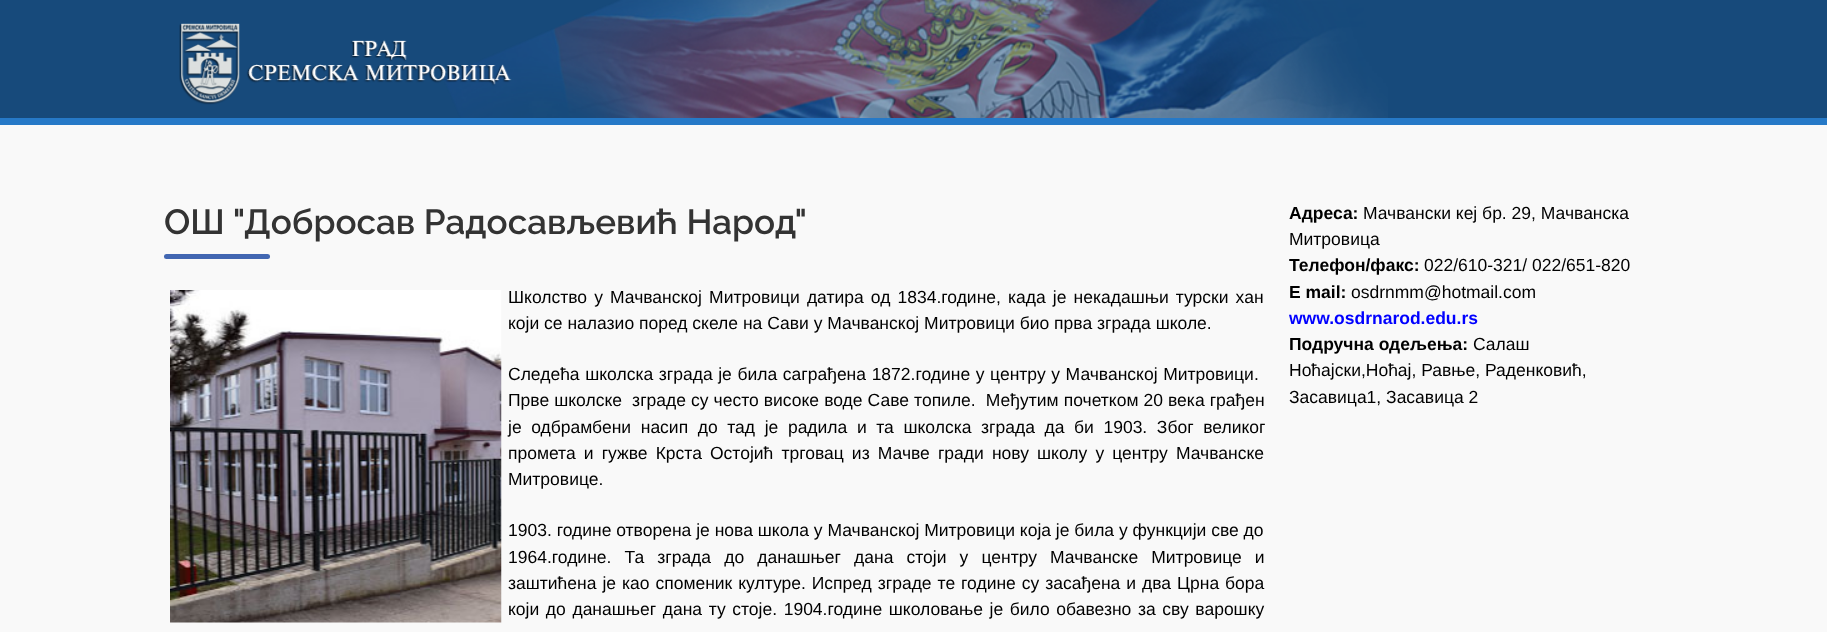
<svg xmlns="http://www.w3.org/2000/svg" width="1827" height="632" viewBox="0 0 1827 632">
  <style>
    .t1 { font: 600 35px Raleway; fill: #333; }
    .t2 { font: 17.5px Liberation Sans; fill: #000; }
    .t3 { font: bold 17.5px Liberation Sans; fill: #000; }
    .t4 { font: bold 17.5px Liberation Sans; fill: #00f; }
  </style>
  <rect width="100%" height="100%" fill="#f9f9f9"/>
  <rect x="0" y="0" width="1827" height="118" fill="#174a7b"/>
  <image x="444" y="0" width="944" height="118" href="images/1.png"/>
  <rect x="0" y="118" width="1827" height="7" fill="#2679c7"/>
  <image x="179" y="23" width="333" height="82" href="images/2.png"/>
  <text x="164" y="234" class="t1">ОШ "Добросав Радосављевић Народ"</text>
  <rect x="164" y="254" width="106" height="5" rx="2.5" fill="#4267b2"/>
  <image x="170" y="290" width="332" height="333" href="images/3.png"/>
  <text x="508" y="303" word-spacing="2.25" class="t2">Школство у Мачванској Митровици датира од 1834.године, када је некадашњи турски хан</text>
  <text x="508" y="329" class="t2">који се налазио поред скеле на Сави у Мачванској Митровици био прва зграда школе.</text>
  <text x="508" y="380" word-spacing="0.75" class="t2">Следећа школска зграда је била саграђена 1872.године у центру у Мачванској Митровици.</text>
  <text x="508" y="406" word-spacing="0.2" class="t2" xml:space="preserve">Прве школске  зграде су често високе воде Саве топиле.  Међутим почетком 20 века грађен</text>
  <text x="508" y="433" word-spacing="4.75" class="t2">је одбрамбени насип до тад је радила и та школска зграда да би 1903. Због великог</text>
  <text x="508" y="459" word-spacing="3.25" class="t2">промета и гужве Крста Остојић трговац из Мачве гради нову школу у центру Мачванске</text>
  <text x="508" y="485" class="t2">Митровице.</text>
  <text x="508" y="536" class="t2">1903. године отворена је нова школа у Мачванској Митровици која је била у функцији све до</text>
  <text x="508" y="563" word-spacing="8.25" class="t2">1964.године. Та зграда до данашњег дана стоји у центру Мачванске Митровице и</text>
  <text x="508" y="589" word-spacing="1.1" class="t2">заштићена је као споменик културе. Испред зграде те године су засађена и два Црна бора</text>
  <text x="508" y="615" word-spacing="1.75" class="t2">који до данашњег дана ту стоје. 1904.године школовање је било обавезно за сву варошку</text>
  <text x="1289" y="219" class="t3">Адреса:</text>
  <text x="1363" y="219" class="t2">Мачвански кеј бр. 29, Мачванска</text>
  <text x="1289" y="245" class="t2">Митровица</text>
  <text x="1289" y="271" class="t3">Телефон/факс:</text>
  <text x="1424" y="271" class="t2">022/610-321/ 022/651-820</text>
  <text x="1289" y="298" class="t3">Е mail:</text>
  <text x="1351" y="298" class="t2">osdrnmm@hotmail.com</text>
  <text x="1289" y="324" class="t4">www.osdrnarod.edu.rs</text>
  <text x="1289" y="350" class="t3">Подручна одељења:</text>
  <text x="1473" y="350" class="t2">Салаш</text>
  <text x="1289" y="376" class="t2">Ноћајски,Ноћај, Равње, Раденковић,</text>
  <text x="1289" y="403" class="t2">Засавица1, Засавица 2</text>
</svg>
